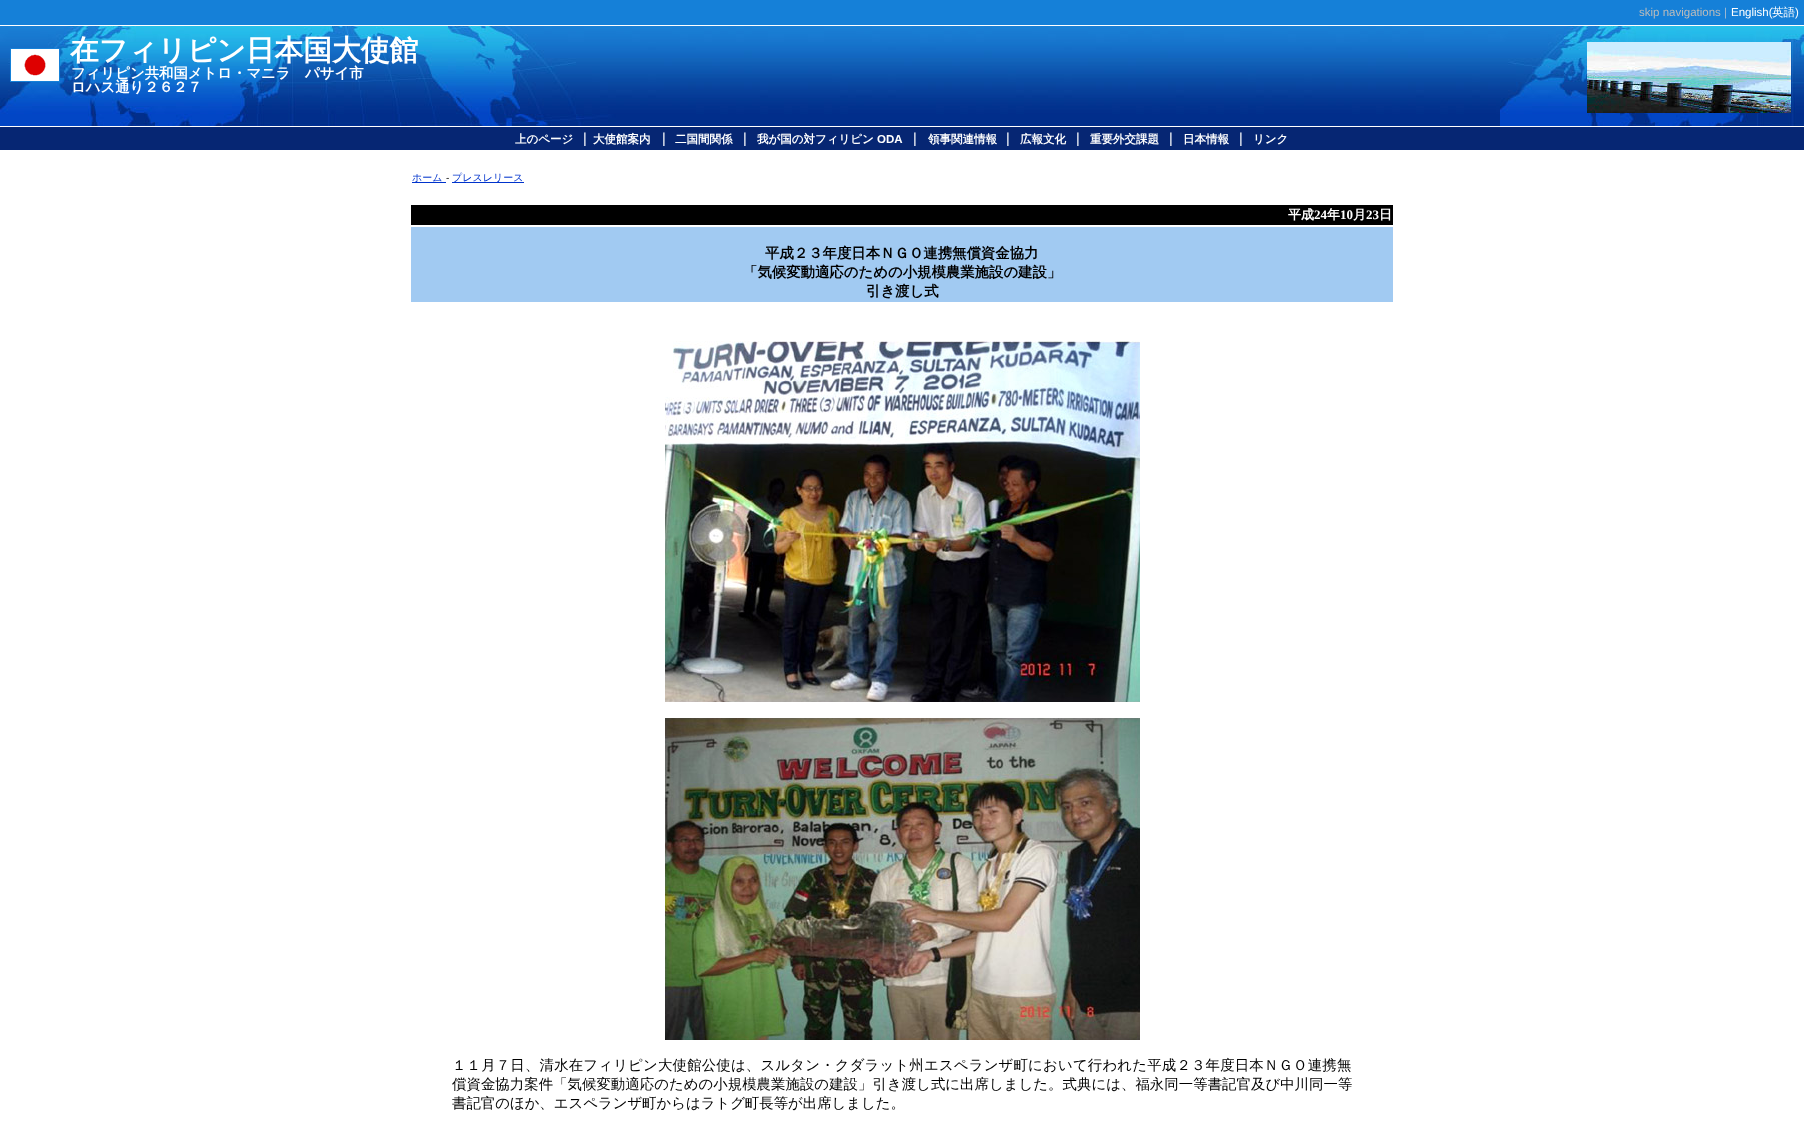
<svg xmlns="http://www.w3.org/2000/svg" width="1804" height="1136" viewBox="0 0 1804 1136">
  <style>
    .t1 { font: 11.5px Liberation Sans; fill: #bbb; }
    .t2 { font: 11.5px Liberation Sans; fill: #a3bcd3; }
    .t3 { font: 11.5px Liberation Sans; fill: #fff; }
    .t4 { font: 500 11.5px WenQuanYi Zen Hei; fill: #fff; }
    .t5 { font: bold 28.75px WenQuanYi Zen Hei; fill: #fff; }
    .t6 { font: bold 14.4px WenQuanYi Zen Hei; fill: #fff; }
    .t7 { font: bold 11.5px WenQuanYi Zen Hei; fill: #fff; }
    .t8 { font: 14.4px Liberation Sans; fill: #fff; }
    .t9 { font: bold 11.5px Liberation Sans; fill: #fff; }
    .t10 { font: 500 10px WenQuanYi Zen Hei; fill: #03c; }
    .t11 { font: 10px Liberation Sans; fill: #000; }
    .t12 { font: bold 13px WenQuanYi Zen Hei; fill: #fff; }
    .t13 { font: bold 13px Liberation Serif; fill: #fff; }
    .t14 { font: bold 14.4px WenQuanYi Zen Hei; fill: #000; }
    .t15 { font: 500 14.4px WenQuanYi Zen Hei; letter-spacing: 0.2px; fill: #000; }
    .t16 { font: 500 14.4px WenQuanYi Zen Hei; letter-spacing: 0.05px; fill: #000; }
    .t17 { font: 500 14.4px WenQuanYi Zen Hei; fill: #000; }
  </style>
  <rect width="100%" height="100%" fill="#fff"/>
  <rect x="0" y="0" width="1804" height="25" fill="#1580d8"/>
  <text x="1639" y="16" class="t1">skip navigations</text>
  <text x="1724" y="16" class="t2">|</text>
  <text x="1731" y="16" class="t3">English(</text>
  <text x="1772" y="16" class="t4">英語</text>
  <text x="1795" y="16" class="t3">)</text>
  <image x="0" y="26" width="1804" height="100" href="images/1.png"/>
  <image x="10" y="48" width="50" height="34" href="images/2.png"/>
  <text x="70" y="60" class="t5">在フィリピン日本国大使館</text>
  <text x="71" y="78" class="t6">フィリピン共和国メトロ・マニラ　パサイ市</text>
  <text x="71" y="92" class="t6">ロハス通り２６２７</text>
  <image x="1587" y="42" width="204" height="71" href="images/3.png"/>
  <rect x="0" y="127" width="1804" height="23" fill="#062673"/>
  <text x="515" y="143" class="t7">上のページ</text>
  <text x="583" y="143" class="t8">|</text>
  <text x="593" y="143" class="t7">大使館案内</text>
  <text x="662" y="143" class="t8">|</text>
  <text x="675" y="143" class="t7">二国間関係</text>
  <text x="743" y="143" class="t8">|</text>
  <text x="757" y="143" class="t7">我が国の対フィリピン</text>
  <text x="877" y="143" class="t9">ODA</text>
  <text x="913" y="143" class="t8">|</text>
  <text x="928" y="143" class="t7">領事関連情報</text>
  <text x="1006" y="143" class="t8">|</text>
  <text x="1020" y="143" class="t7">広報文化</text>
  <text x="1076" y="143" class="t8">|</text>
  <text x="1090" y="143" class="t7">重要外交課題</text>
  <text x="1169" y="143" class="t8">|</text>
  <text x="1183" y="143" class="t7">日本情報</text>
  <text x="1239" y="143" class="t8">|</text>
  <text x="1253" y="143" class="t7">リンク</text>
  <rect x="412" y="182" width="34" height="1" fill="#03c"/>
  <text x="412" y="181" class="t10">ホーム</text>
  <text x="446" y="181" class="t11">-</text>
  <rect x="452" y="182" width="72" height="1" fill="#03c"/>
  <text x="452" y="181" class="t10">プレスレリース</text>
  <rect x="411" y="205" width="982" height="20" fill="#000"/>
  <text x="1288" y="219" class="t12">平成</text>
  <text x="1314" y="219" class="t13">24</text>
  <text x="1327" y="219" class="t12">年</text>
  <text x="1340" y="219" class="t13">10</text>
  <text x="1353" y="219" class="t12">月</text>
  <text x="1366" y="219" class="t13">23</text>
  <text x="1379" y="219" class="t12">日</text>
  <rect x="411" y="227" width="982" height="75" fill="#a1caf2"/>
  <text x="765" y="258" class="t14">平成２３年度日本ＮＧＯ連携無償資金協力</text>
  <text x="743" y="277" class="t14">「気候変動適応のための小規模農業施設の建設」</text>
  <text x="866" y="296" class="t14">引き渡し式</text>
  <image x="665" y="341" width="475" height="361" href="images/4.png"/>
  <image x="665" y="718" width="475" height="322" href="images/5.png"/>
  <text x="452" y="1070" class="t15">１１月７日、清水在フィリピン大使館公使は、スルタン・クダラット州エスペランザ町において行われた平成２３年度日本ＮＧＯ連携無</text>
  <text x="452" y="1089" class="t16">償資金協力案件「気候変動適応のための小規模農業施設の建設」引き渡し式に出席しました。式典には、福永同一等書記官及び中川同一等</text>
  <text x="452" y="1108" class="t17">書記官のほか、エスペランザ町からはラトグ町長等が出席しました。</text>
</svg>
